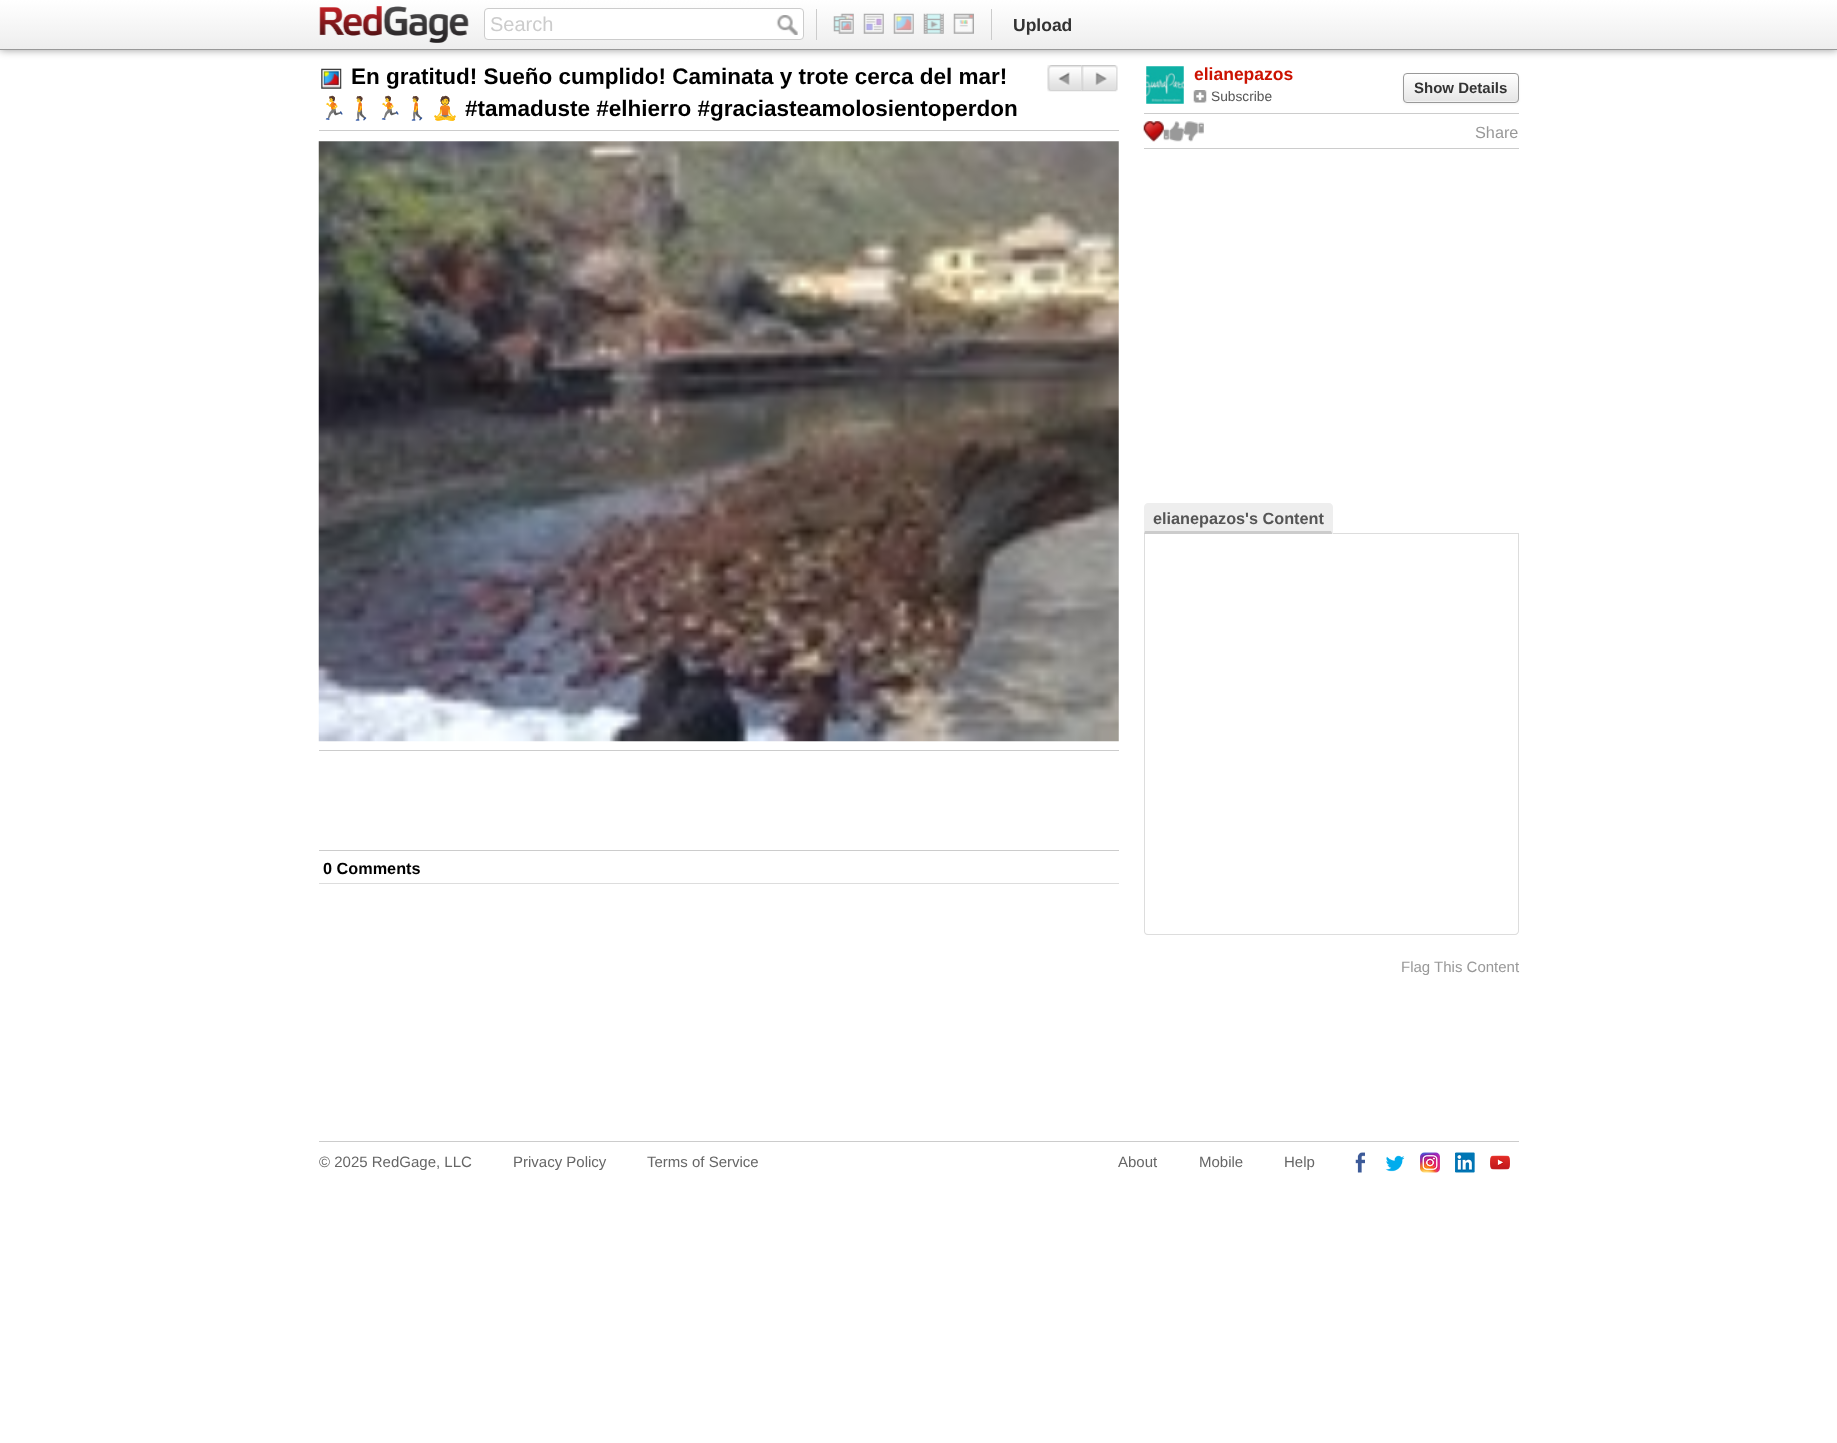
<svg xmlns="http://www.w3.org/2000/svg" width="1837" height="1443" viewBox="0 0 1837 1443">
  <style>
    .t1 { font: 20px Liberation Sans; fill: #ccc; }
    .t2 { font: bold 17.5px Liberation Sans; fill: #333; }
    .t3 { font: bold 22.5px Liberation Sans; fill: #000; }
    .t4 { font: bold 22.5px Noto Color Emoji; fill: #000; }
    .t5 { font: bold 16.25px Liberation Sans; fill: #000; }
    .t6 { font: bold 17.5px Liberation Sans; fill: #c10; }
    .t7 { font: 13.75px Liberation Sans; fill: #555; }
    .t8 { font: bold 15px Liberation Sans; fill: #333; }
    .t9 { font: 16.25px Liberation Sans; fill: #999; }
    .t10 { font: bold 16.25px Liberation Sans; fill: #555; }
    .t11 { font: 15px Liberation Sans; fill: #999; }
    .t12 { font: 15px Liberation Sans; fill: #666; }
  </style>
  <defs>
    <linearGradient id="g1" gradientUnits="userSpaceOnUse" x1="919" y1="0" x2="919" y2="49"><stop offset="0" stop-color="#fff"/><stop offset="1" stop-color="#eee"/></linearGradient>
    <clipPath id="clip1"><rect x="1403" y="73" width="116" height="30" rx="4"/></clipPath>
    <linearGradient id="g2" gradientUnits="userSpaceOnUse" x1="1461" y1="74" x2="1461" y2="101"><stop offset="0" stop-color="#fff"/><stop offset="1" stop-color="#e6e6e6"/></linearGradient>
  </defs>
  <rect width="100%" height="100%" fill="#fff"/>
  <rect x="0" y="0" width="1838" height="50" fill="#00000066" filter="blur(4px)"/>
  <rect x="0" y="0" width="1837" height="49" fill="url(#g1)"/>
  <rect x="0" y="49" width="1837" height="1" fill="#999"/>
  <image x="319" y="6" width="150" height="37" href="images/1.png"/>
  <rect x="484.5" y="8.5" width="319" height="31" rx="3.5" fill="#fff" stroke="#ccc"/>
  <text x="490" y="31" class="t1">Search</text>
  <image x="776" y="15" width="22" height="20" href="images/2.png"/>
  <rect x="991" y="9" width="1" height="31" fill="#ccc"/>
  <rect x="816" y="9" width="1" height="31" fill="#ccc"/>
  <image x="833" y="13" width="21" height="21" href="images/3.png"/>
  <image x="863" y="13" width="21" height="21" href="images/4.png"/>
  <image x="893" y="13" width="21" height="21" href="images/5.png"/>
  <image x="923" y="13" width="21" height="21" href="images/6.png"/>
  <image x="953" y="13" width="21" height="21" href="images/7.png"/>
  <text x="1013" y="31" class="t2">Upload</text>
  <rect x="319" y="130" width="800" height="1" fill="#ccc"/>
  <image x="321" y="68" width="21" height="21" href="images/8.png"/>
  <text x="351" y="84" class="t3">En gratitud! Sueño cumplido! Caminata y trote cerca del mar!</text>
  <image x="1047" y="65" width="35" height="27" href="images/9.png"/>
  <image x="1081" y="65" width="37" height="27" href="images/10.png"/>
  <text x="319" y="116" class="t4">🏃🚶🏃🚶🧘</text>
  <text x="465" y="116" class="t3">#tamaduste #elhierro #graciasteamolosientoperdon</text>
  <image x="318" y="141" width="801" height="601" href="images/11.png"/>
  <rect x="319" y="750" width="800" height="1" fill="#ccc"/>
  <rect x="319" y="850" width="800" height="1" fill="#ccc"/>
  <rect x="319" y="883" width="800" height="1" fill="#ddd"/>
  <text x="323" y="874" class="t5">0 Comments</text>
  <image x="1146" y="66" width="38" height="38" href="images/12.png"/>
  <text x="1194" y="80" class="t6">elianepazos</text>
  <image x="1193" y="90" width="14" height="13" href="images/13.png"/>
  <text x="1211" y="101" class="t7">Subscribe</text>
  <rect x="1403" y="74" width="116" height="30" rx="4" fill="#0000000d" filter="blur(1px)"/>
  <g clip-path="url(#clip1)">
    <rect x="1403" y="74" width="116" height="27" fill="url(#g2)"/>
  </g>
  <rect x="1403.5" y="73.5" width="115" height="29" rx="3.5" fill="none" stroke="#999"/>
  <text x="1414" y="93" class="t8">Show Details</text>
  <rect x="1144" y="113" width="375" height="1" fill="#ccc"/>
  <rect x="1144" y="148" width="375" height="1" fill="#ccc"/>
  <image x="1143" y="121" width="21" height="21" href="images/14.png"/>
  <image x="1163" y="121" width="21" height="21" href="images/15.png"/>
  <image x="1183" y="121" width="21" height="21" href="images/16.png"/>
  <text x="1475" y="138" class="t9">Share</text>
  <rect x="1333" y="533" width="186" height="1" fill="#ddd"/>
  <path d="M1148 503H1329C1331 503 1333 505 1333 507V534H1144V507C1144 505 1146 503 1148 503Z" fill="#eee"/>
  <path d="M1144 534L1145 531H1331L1332 533V534Z" fill="#ccc"/>
  <text x="1153" y="524" class="t10">elianepazos's Content</text>
  <path d="M1144 534H1519V931C1519 933 1517 935 1515 935H1148C1145 935 1144 933 1144 931ZM1145 534H1518V931C1518 933 1516 934 1515 934H1148C1146 934 1145 933 1145 931Z" fill="#ddd" fill-rule="evenodd"/>
  <text x="1401" y="972" class="t11">Flag This Content</text>
  <rect x="319" y="1141" width="1200" height="1" fill="#ccc"/>
  <text x="319" y="1167" class="t12">© 2025 RedGage, LLC</text>
  <text x="513" y="1167" class="t12">Privacy Policy</text>
  <text x="647" y="1167" class="t12">Terms of Service</text>
  <text x="1118" y="1167" class="t12">About</text>
  <text x="1199" y="1167" class="t12">Mobile</text>
  <text x="1284" y="1167" class="t12">Help</text>
  <image x="1355" y="1152" width="10" height="21" href="images/17.png"/>
  <image x="1385" y="1155" width="20" height="17" href="images/18.png"/>
  <image x="1420" y="1152" width="20" height="21" href="images/19.png"/>
  <image x="1455" y="1152" width="20" height="21" href="images/20.png"/>
  <image x="1490" y="1155" width="20" height="15" href="images/21.png"/>
</svg>
